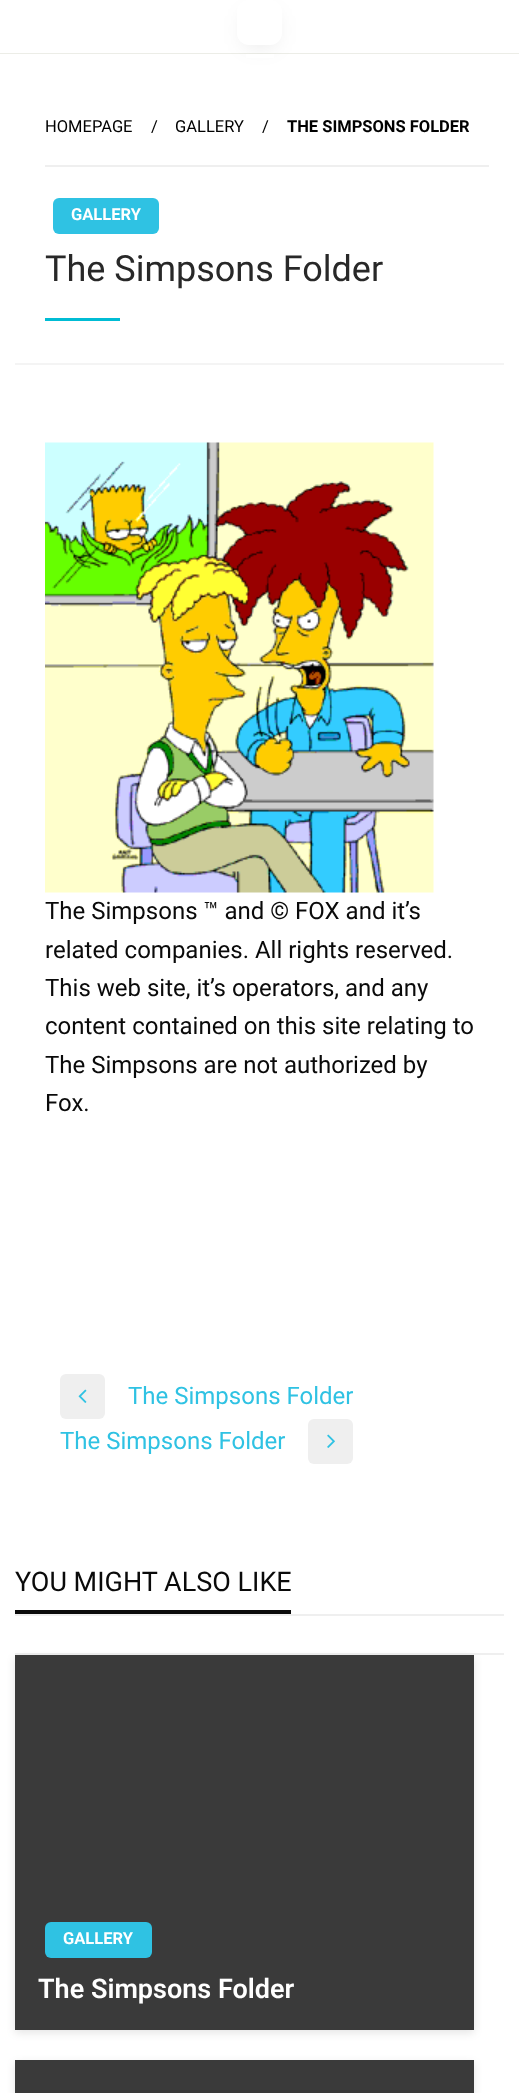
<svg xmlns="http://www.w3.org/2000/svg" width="519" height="2093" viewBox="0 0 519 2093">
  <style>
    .t1 { font: 16.5px Roboto; fill: #000; }
    .t2 { font: bold 16.5px Roboto; fill: #000; }
    .t3 { font: bold 16.5px Roboto; fill: #fff; }
    .t4 { font: 36px Roboto; fill: #282828; }
    .t5 { font: 24px Roboto; fill: #0a0a0a; }
    .t6 { font: 24px Roboto; fill: #2fc2e3; }
    .t7 { font: 27px Roboto; fill: #0a0a0a; }
    .t8 { font: 600 27px Roboto; fill: #fff; }
  </style>
  <rect width="100%" height="100%" fill="#fff"/>
  <rect x="0" y="53" width="519" height="1" fill="#ecede7"/>
  <rect x="245" y="15" width="30" height="30" rx="5" fill="#0000001a" filter="blur(11px)"/>
  <rect x="237" y="0" width="45" height="45" rx="12" fill="#fff"/>
  <rect x="246" y="54" width="28" height="4" fill="#fff"/>
  <rect x="15" y="363" width="489" height="2" fill="#f4f4f4"/>
  <rect x="45" y="165" width="444" height="2" fill="#efefef"/>
  <text x="45" y="132" class="t1">HOMEPAGE</text>
  <text x="151" y="132" class="t1">/</text>
  <text x="175" y="132" class="t1">GALLERY</text>
  <text x="262" y="132" class="t1">/</text>
  <text x="287" y="132" class="t2">THE SIMPSONS FOLDER</text>
  <rect x="53" y="198" width="106" height="36" rx="6" fill="#2fc2e3"/>
  <text x="71" y="220" class="t3">GALLERY</text>
  <text x="45" y="281" class="t4">The Simpsons Folder</text>
  <rect x="45" y="318" width="75" height="3" fill="#00bcd4"/>
  <image x="45" y="442" width="389" height="451" href="images/1.png"/>
  <text x="45" y="919" class="t5">The Simpsons ™ and © FOX and it’s</text>
  <text x="45" y="958" class="t5">related companies. All rights reserved.</text>
  <text x="45" y="996" class="t5">This web site, it’s operators, and any</text>
  <text x="45" y="1034" class="t5">content contained on this site relating to</text>
  <text x="45" y="1073" class="t5">The Simpsons are not authorized by</text>
  <text x="45" y="1111" class="t5">Fox.</text>
  <rect x="60" y="1374" width="45" height="45" rx="6" fill="#efefef"/>
  <image x="78" y="1389" width="9" height="14" href="images/2.png"/>
  <text x="128" y="1404" class="t6">The Simpsons Folder</text>
  <text x="60" y="1449" class="t6">The Simpsons Folder</text>
  <rect x="308" y="1419" width="45" height="45" rx="6" fill="#efefef"/>
  <image x="327" y="1434" width="8" height="14" href="images/3.png"/>
  <rect x="15" y="1653" width="489" height="2" fill="#efefef"/>
  <rect x="15" y="1614" width="489" height="2" fill="#efefef"/>
  <rect x="15" y="1610" width="276" height="4" fill="#0a0a0a"/>
  <text x="15" y="1591" class="t7">YOU MIGHT ALSO LIKE</text>
  <rect x="15" y="1658" width="459" height="375" fill="#0000001a" filter="blur(4px)"/>
  <rect x="15" y="1655" width="459" height="375" fill="#3a3a3a"/>
  <rect x="45" y="1922" width="107" height="36" rx="6" fill="#2fc2e3"/>
  <text x="63" y="1944" class="t3">GALLERY</text>
  <text x="38" y="1998" class="t8">The Simpsons Folder</text>
  <rect x="15" y="2063" width="459" height="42" fill="#0000001a" filter="blur(4px)"/>
  <rect x="15" y="2060" width="459" height="33" fill="#3a3a3a"/>
</svg>
